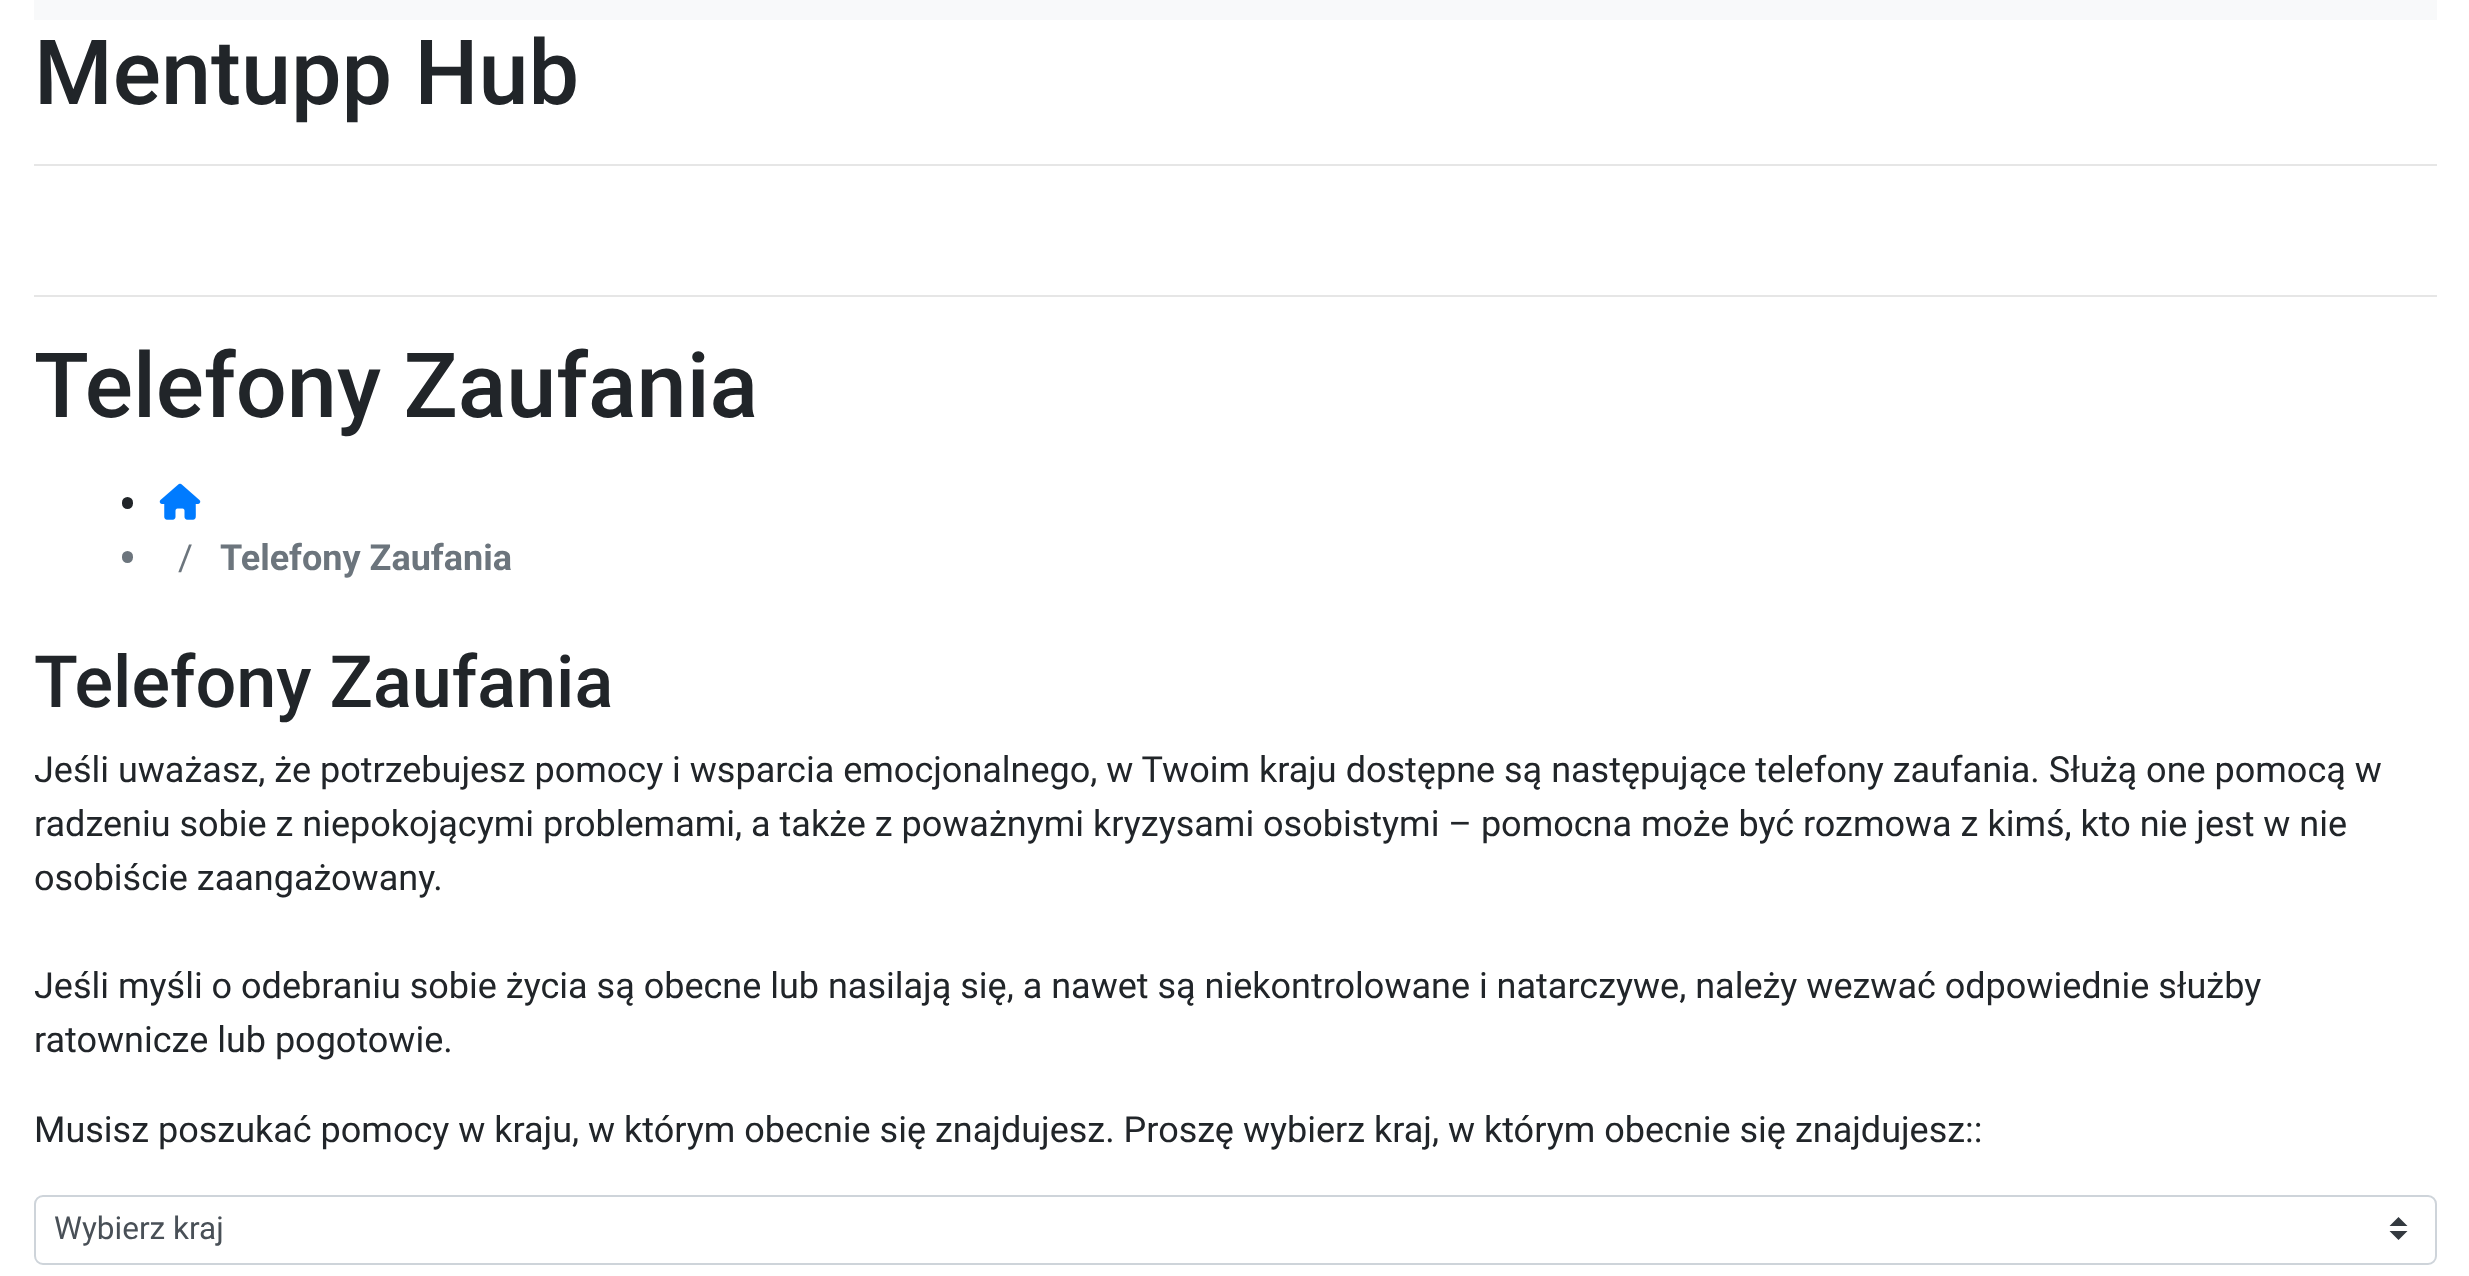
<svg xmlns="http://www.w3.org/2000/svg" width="2469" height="1276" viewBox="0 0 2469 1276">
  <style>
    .t1 { font: 500 90px Roboto; fill: #212529; }
    .t2 { font: 36px Roboto; fill: #6c757d; }
    .t3 { font: bold 36px Roboto; fill: #6c757d; }
    .t4 { font: 500 72px Roboto; fill: #212529; }
    .t5 { font: 36px Roboto; fill: #212529; }
    .t6 { font: 31.5px Roboto; fill: #495057; }
  </style>
  <rect width="100%" height="100%" fill="#fff"/>
  <rect x="34" y="0" width="2403" height="20" fill="#f8f9fa"/>
  <text x="34" y="104" class="t1">Mentupp Hub</text>
  <rect x="34" y="164" width="2403" height="2" fill="#e6e6e6"/>
  <rect x="34" y="295" width="2403" height="2" fill="#e6e6e6"/>
  <text x="34" y="417" class="t1">Telefony Zaufania</text>
  <rect x="122" y="497" width="11" height="12" rx="5.5" fill="#212529"/>
  <image x="159" y="483" width="42" height="37" href="images/1.png"/>
  <rect x="122" y="551" width="11" height="12" rx="5.5" fill="#6c757d"/>
  <text x="178" y="570" class="t2">/</text>
  <text x="220" y="570" class="t3">Telefony Zaufania</text>
  <text x="34" y="707" class="t4">Telefony Zaufania</text>
  <text x="34" y="782" class="t5">Jeśli uważasz, że potrzebujesz pomocy i wsparcia emocjonalnego, w Twoim kraju dostępne są następujące telefony zaufania. Służą one pomocą w</text>
  <text x="34" y="836" class="t5">radzeniu sobie z niepokojącymi problemami, a także z poważnymi kryzysami osobistymi – pomocna może być rozmowa z kimś, kto nie jest w nie</text>
  <text x="34" y="890" class="t5">osobiście zaangażowany.</text>
  <text x="34" y="998" class="t5">Jeśli myśli o odebraniu sobie życia są obecne lub nasilają się, a nawet są niekontrolowane i natarczywe, należy wezwać odpowiednie służby</text>
  <text x="34" y="1052" class="t5">ratownicze lub pogotowie.</text>
  <text x="34" y="1142" class="t5">Musisz poszukać pomocy w kraju, w którym obecnie się znajdujesz. Proszę wybierz kraj, w którym obecnie się znajdujesz::</text>
  <path d="M2398.5 1217L2389.5 1226H2407.5ZM2398.5 1240L2389.5 1231H2407.5Z" fill="#343a40"/>
  <rect x="35" y="1196" width="2401" height="68" rx="8" fill="none" stroke="#ced4da" stroke-width="2"/>
  <text x="54" y="1239" class="t6">Wybierz kraj</text>
</svg>
